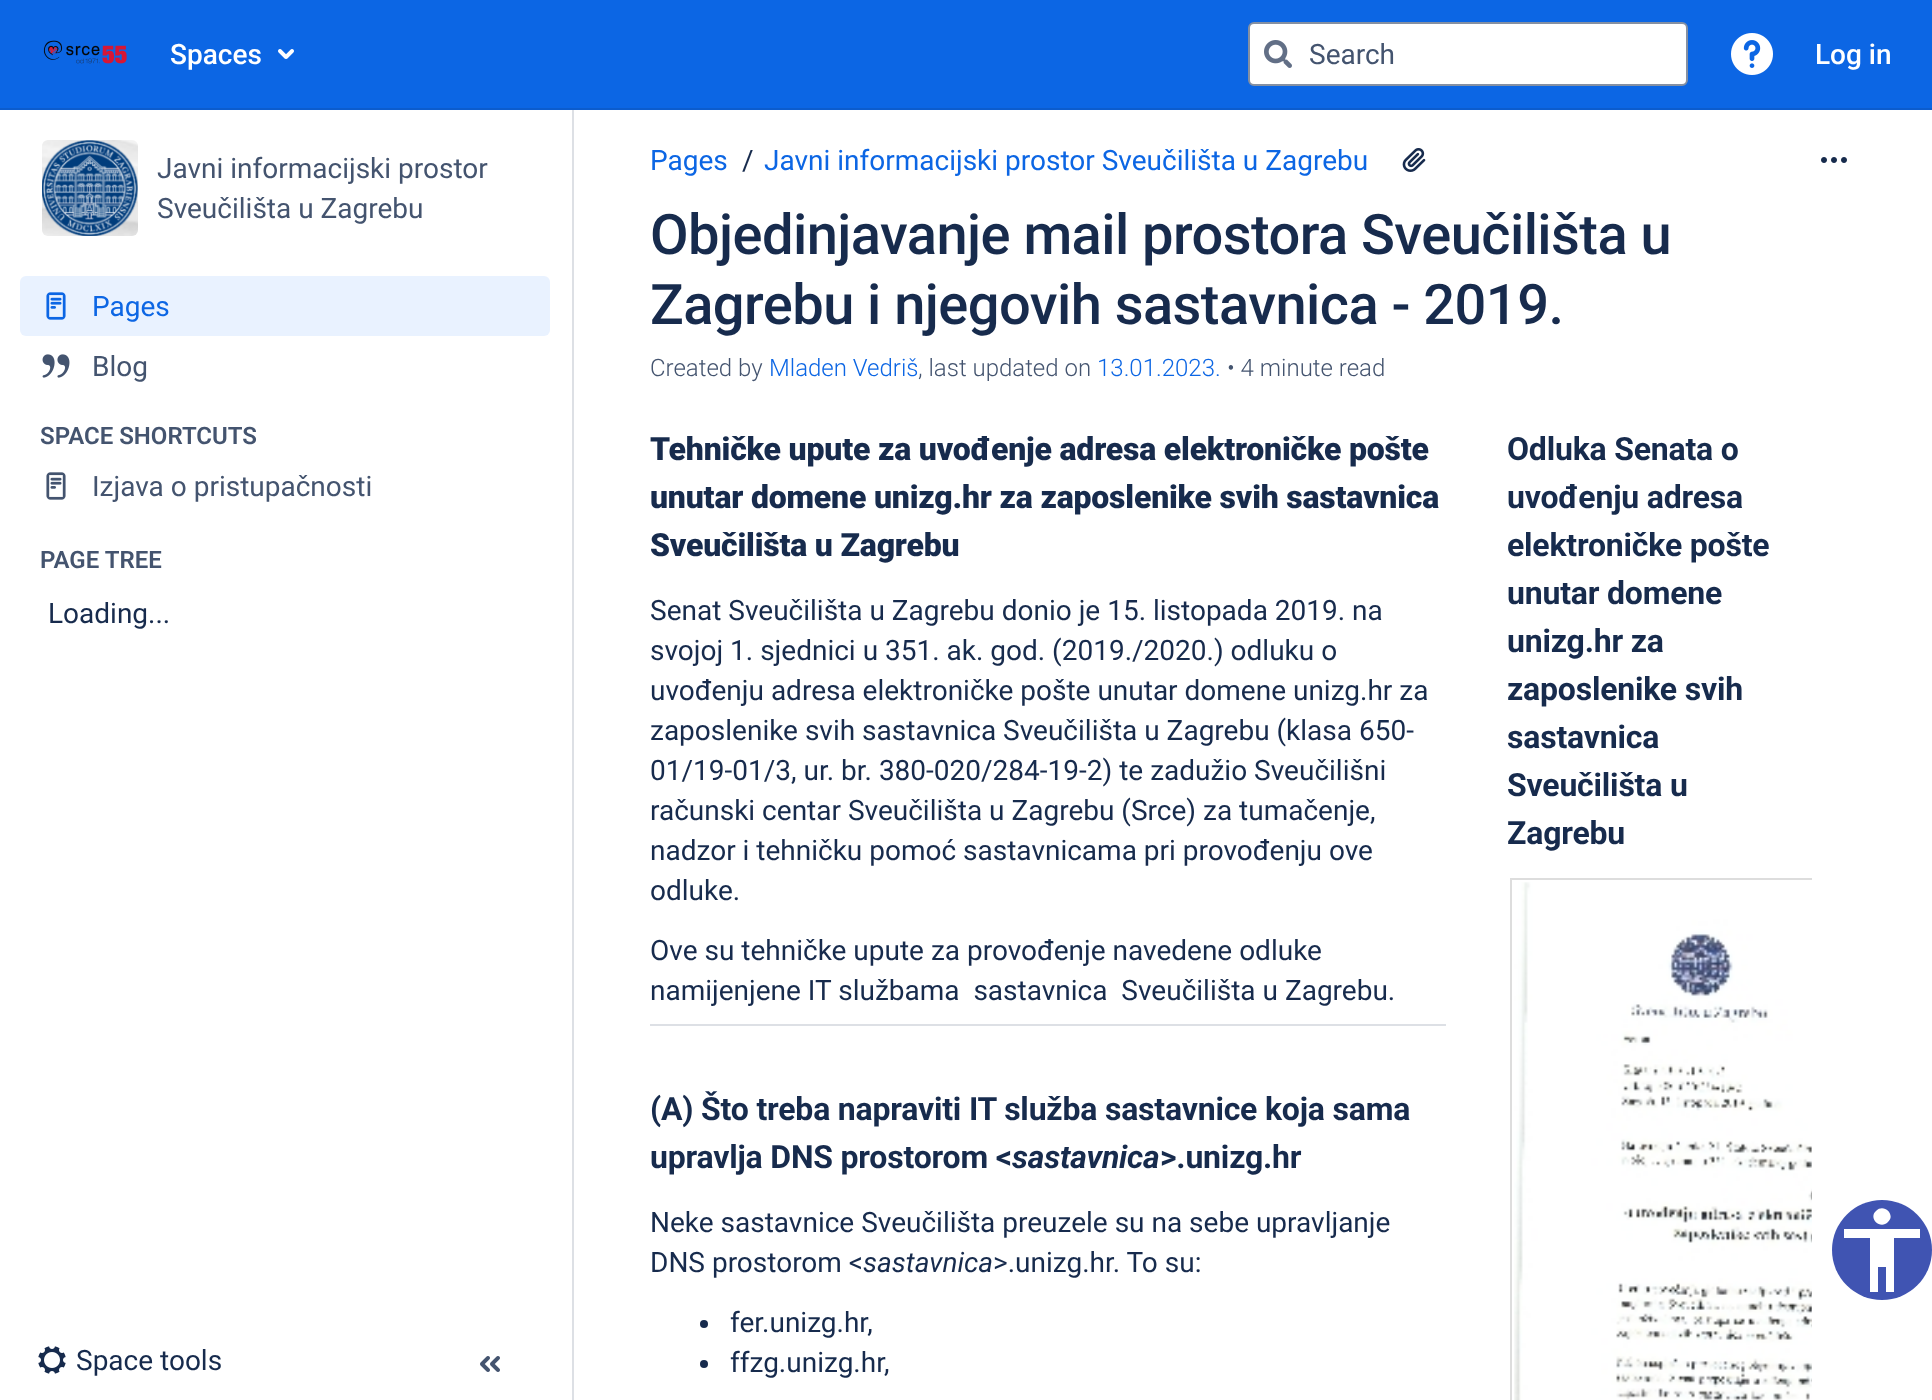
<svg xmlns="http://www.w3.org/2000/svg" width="1932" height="1400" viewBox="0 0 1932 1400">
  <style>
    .t1 { font: 500 28px Roboto; fill: #fff; }
    .t2 { font: 28px Roboto; fill: #44546f; }
    .t3 { font: 28px Roboto; fill: #0c66e4; }
    .t4 { font: 600 24px Roboto; fill: #44546f; }
    .t5 { font: 28px Roboto; fill: #172b4d; }
    .t6 { font: 500 56px Roboto; letter-spacing: -0.55px; fill: #172b4d; }
    .t7 { font: 300 24px Roboto; fill: #44546f; }
    .t8 { font: 300 24px Roboto; fill: #0c66e4; }
    .t9 { font: 900 32px Roboto; letter-spacing: -0.2px; fill: #172b4d; }
    .t10 { font: bold 32px Roboto; letter-spacing: -0.2px; fill: #172b4d; }
    .t11 { font: italic bold 32px Roboto; letter-spacing: -0.2px; fill: #172b4d; }
    .t12 { font: italic 28px Roboto; fill: #172b4d; }
  </style>
  <defs>
    <clipPath id="clip1"><rect x="1506" y="426" width="306" height="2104"/></clipPath>
  </defs>
  <rect width="100%" height="100%" fill="#fff"/>
  <rect x="0" y="0" width="1932" height="108" fill="#0c66e4"/>
  <rect x="0" y="108" width="1932" height="2" fill="#0c5ccd"/>
  <image x="43" y="40" width="84" height="24" href="images/1.png"/>
  <text x="170" y="64" class="t1">Spaces</text>
  <image x="278" y="49" width="16" height="10" href="images/2.png"/>
  <rect x="1249" y="23" width="438" height="62" rx="5" fill="#fff" stroke="#8590a2" stroke-width="2"/>
  <image x="1264" y="40" width="28" height="28" href="images/3.png"/>
  <text x="1309" y="64" class="t2">Search</text>
  <image x="1731" y="33" width="42" height="42" href="images/4.png"/>
  <text x="1815" y="64" class="t1">Log in</text>
  <image x="42" y="140" width="96" height="96" href="images/5.png"/>
  <text x="157" y="178" class="t2">Javni informacijski prostor</text>
  <text x="157" y="218" class="t2">Sveučilišta u Zagrebu</text>
  <rect x="20" y="276" width="530" height="60" rx="6" fill="#e9f2ff"/>
  <image x="46" y="292" width="20" height="28" href="images/6.png"/>
  <text x="92" y="316" class="t3">Pages</text>
  <image x="42" y="354" width="28" height="24" href="images/7.png"/>
  <text x="92" y="376" class="t2">Blog</text>
  <text x="40" y="444" class="t4">SPACE SHORTCUTS</text>
  <image x="46" y="472" width="20" height="28" href="images/8.png"/>
  <text x="92" y="496" class="t2">Izjava o pristupačnosti</text>
  <text x="40" y="568" class="t4">PAGE TREE</text>
  <text x="48" y="623" class="t5">Loading...</text>
  <rect x="572" y="110" width="2" height="1290" fill="#dde0e5"/>
  <image x="38" y="1346" width="28" height="28" href="images/9.png"/>
  <text x="76" y="1370" class="t5">Space tools</text>
  <image x="480" y="1356" width="20" height="16" href="images/10.png"/>
  <text x="650" y="170" class="t3">Pages</text>
  <text x="742" y="170" class="t5">/</text>
  <text x="764" y="170" class="t3">Javni informacijski prostor Sveučilišta u Zagrebu</text>
  <image x="1402" y="148" width="24" height="24" href="images/11.png"/>
  <text x="650" y="254" class="t6">Objedinjavanje mail prostora Sveučilišta u</text>
  <text x="650" y="324" class="t6">Zagrebu i njegovih sastavnica - 2019.</text>
  <image x="1821" y="157" width="26" height="6" href="images/12.png"/>
  <text x="650" y="376" class="t7">Created by</text>
  <text x="769" y="376" class="t8">Mladen Vedriš</text>
  <text x="918" y="376" class="t7">, last updated on</text>
  <text x="1097" y="376" class="t8">13.01.2023.</text>
  <text x="1227" y="376" class="t7">• 4 minute read</text>
  <text x="650" y="460" class="t9">Tehničke upute za uvođenje adresa elektroničke pošte</text>
  <text x="650" y="508" class="t9">unutar domene unizg.hr za zaposlenike svih sastavnica</text>
  <text x="650" y="556" class="t9">Sveučilišta u Zagrebu</text>
  <text x="650" y="620" class="t5">Senat Sveučilišta u Zagrebu donio je 15. listopada 2019. na</text>
  <text x="650" y="660" class="t5">svojoj 1. sjednici u 351. ak. god. (2019./2020.) odluku o</text>
  <text x="650" y="700" class="t5">uvođenju adresa elektroničke pošte unutar domene unizg.hr za</text>
  <text x="650" y="740" class="t5">zaposlenike svih sastavnica Sveučilišta u Zagrebu (klasa 650-</text>
  <text x="650" y="780" class="t5">01/19-01/3, ur. br. 380-020/284-19-2) te zadužio Sveučilišni</text>
  <text x="650" y="820" class="t5">računski centar Sveučilišta u Zagrebu (Srce) za tumačenje,</text>
  <text x="650" y="860" class="t5">nadzor i tehničku pomoć sastavnicama pri provođenju ove</text>
  <text x="650" y="900" class="t5">odluke.</text>
  <text x="650" y="960" class="t5">Ove su tehničke upute za provođenje navedene odluke</text>
  <text x="650" y="1000" class="t5" xml:space="preserve">namijenjene IT službama  sastavnica  Sveučilišta u Zagrebu.</text>
  <rect x="650" y="1024" width="796" height="2" fill="#dde0e5"/>
  <text x="650" y="1120" class="t10">(A) Što treba napraviti IT služba sastavnice koja sama</text>
  <text x="650" y="1168" class="t10">upravlja DNS prostorom &lt;</text>
  <text x="1012" y="1168" class="t11">sastavnica</text>
  <text x="1160" y="1168" class="t10">&gt;.unizg.hr</text>
  <text x="650" y="1232" class="t5">Neke sastavnice Sveučilišta preuzele su na sebe upravljanje</text>
  <text x="650" y="1272" class="t5">DNS prostorom &lt;</text>
  <text x="863" y="1272" class="t12">sastavnica</text>
  <text x="993" y="1272" class="t5">&gt;.unizg.hr. To su:</text>
  <circle cx="704" cy="1324" r="4" fill="#172b4d"/>
  <text x="730" y="1332" class="t5">fer.unizg.hr,</text>
  <circle cx="704" cy="1364" r="4" fill="#172b4d"/>
  <text x="730" y="1372" class="t5">ffzg.unizg.hr,</text>
  <text x="1507" y="460" class="t10">Odluka Senata o</text>
  <text x="1507" y="508" class="t10">uvođenju adresa</text>
  <text x="1507" y="556" class="t10">elektroničke pošte</text>
  <text x="1507" y="604" class="t10">unutar domene</text>
  <text x="1507" y="652" class="t10">unizg.hr za</text>
  <text x="1507" y="700" class="t10">zaposlenike svih</text>
  <text x="1507" y="748" class="t10">sastavnica</text>
  <text x="1507" y="796" class="t10">Sveučilišta u</text>
  <text x="1507" y="844" class="t10">Zagrebu</text>
  <g clip-path="url(#clip1)">
    <rect x="1511" y="879" width="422" height="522" fill="none" stroke="#ddd" stroke-width="2"/>
  </g>
  <image x="1514" y="882" width="298" height="518" href="images/13.png"/>
  <circle cx="1882" cy="1250" r="50" fill="#4054b2"/>
  <path d="M1920 1238H1894V1292H1886V1267H1878V1292H1870V1238H1844V1229H1920ZM1876 1211C1884 1203 1896 1215 1888 1222C1880 1230 1868 1218 1876 1211Z" fill="#fff"/>
</svg>
